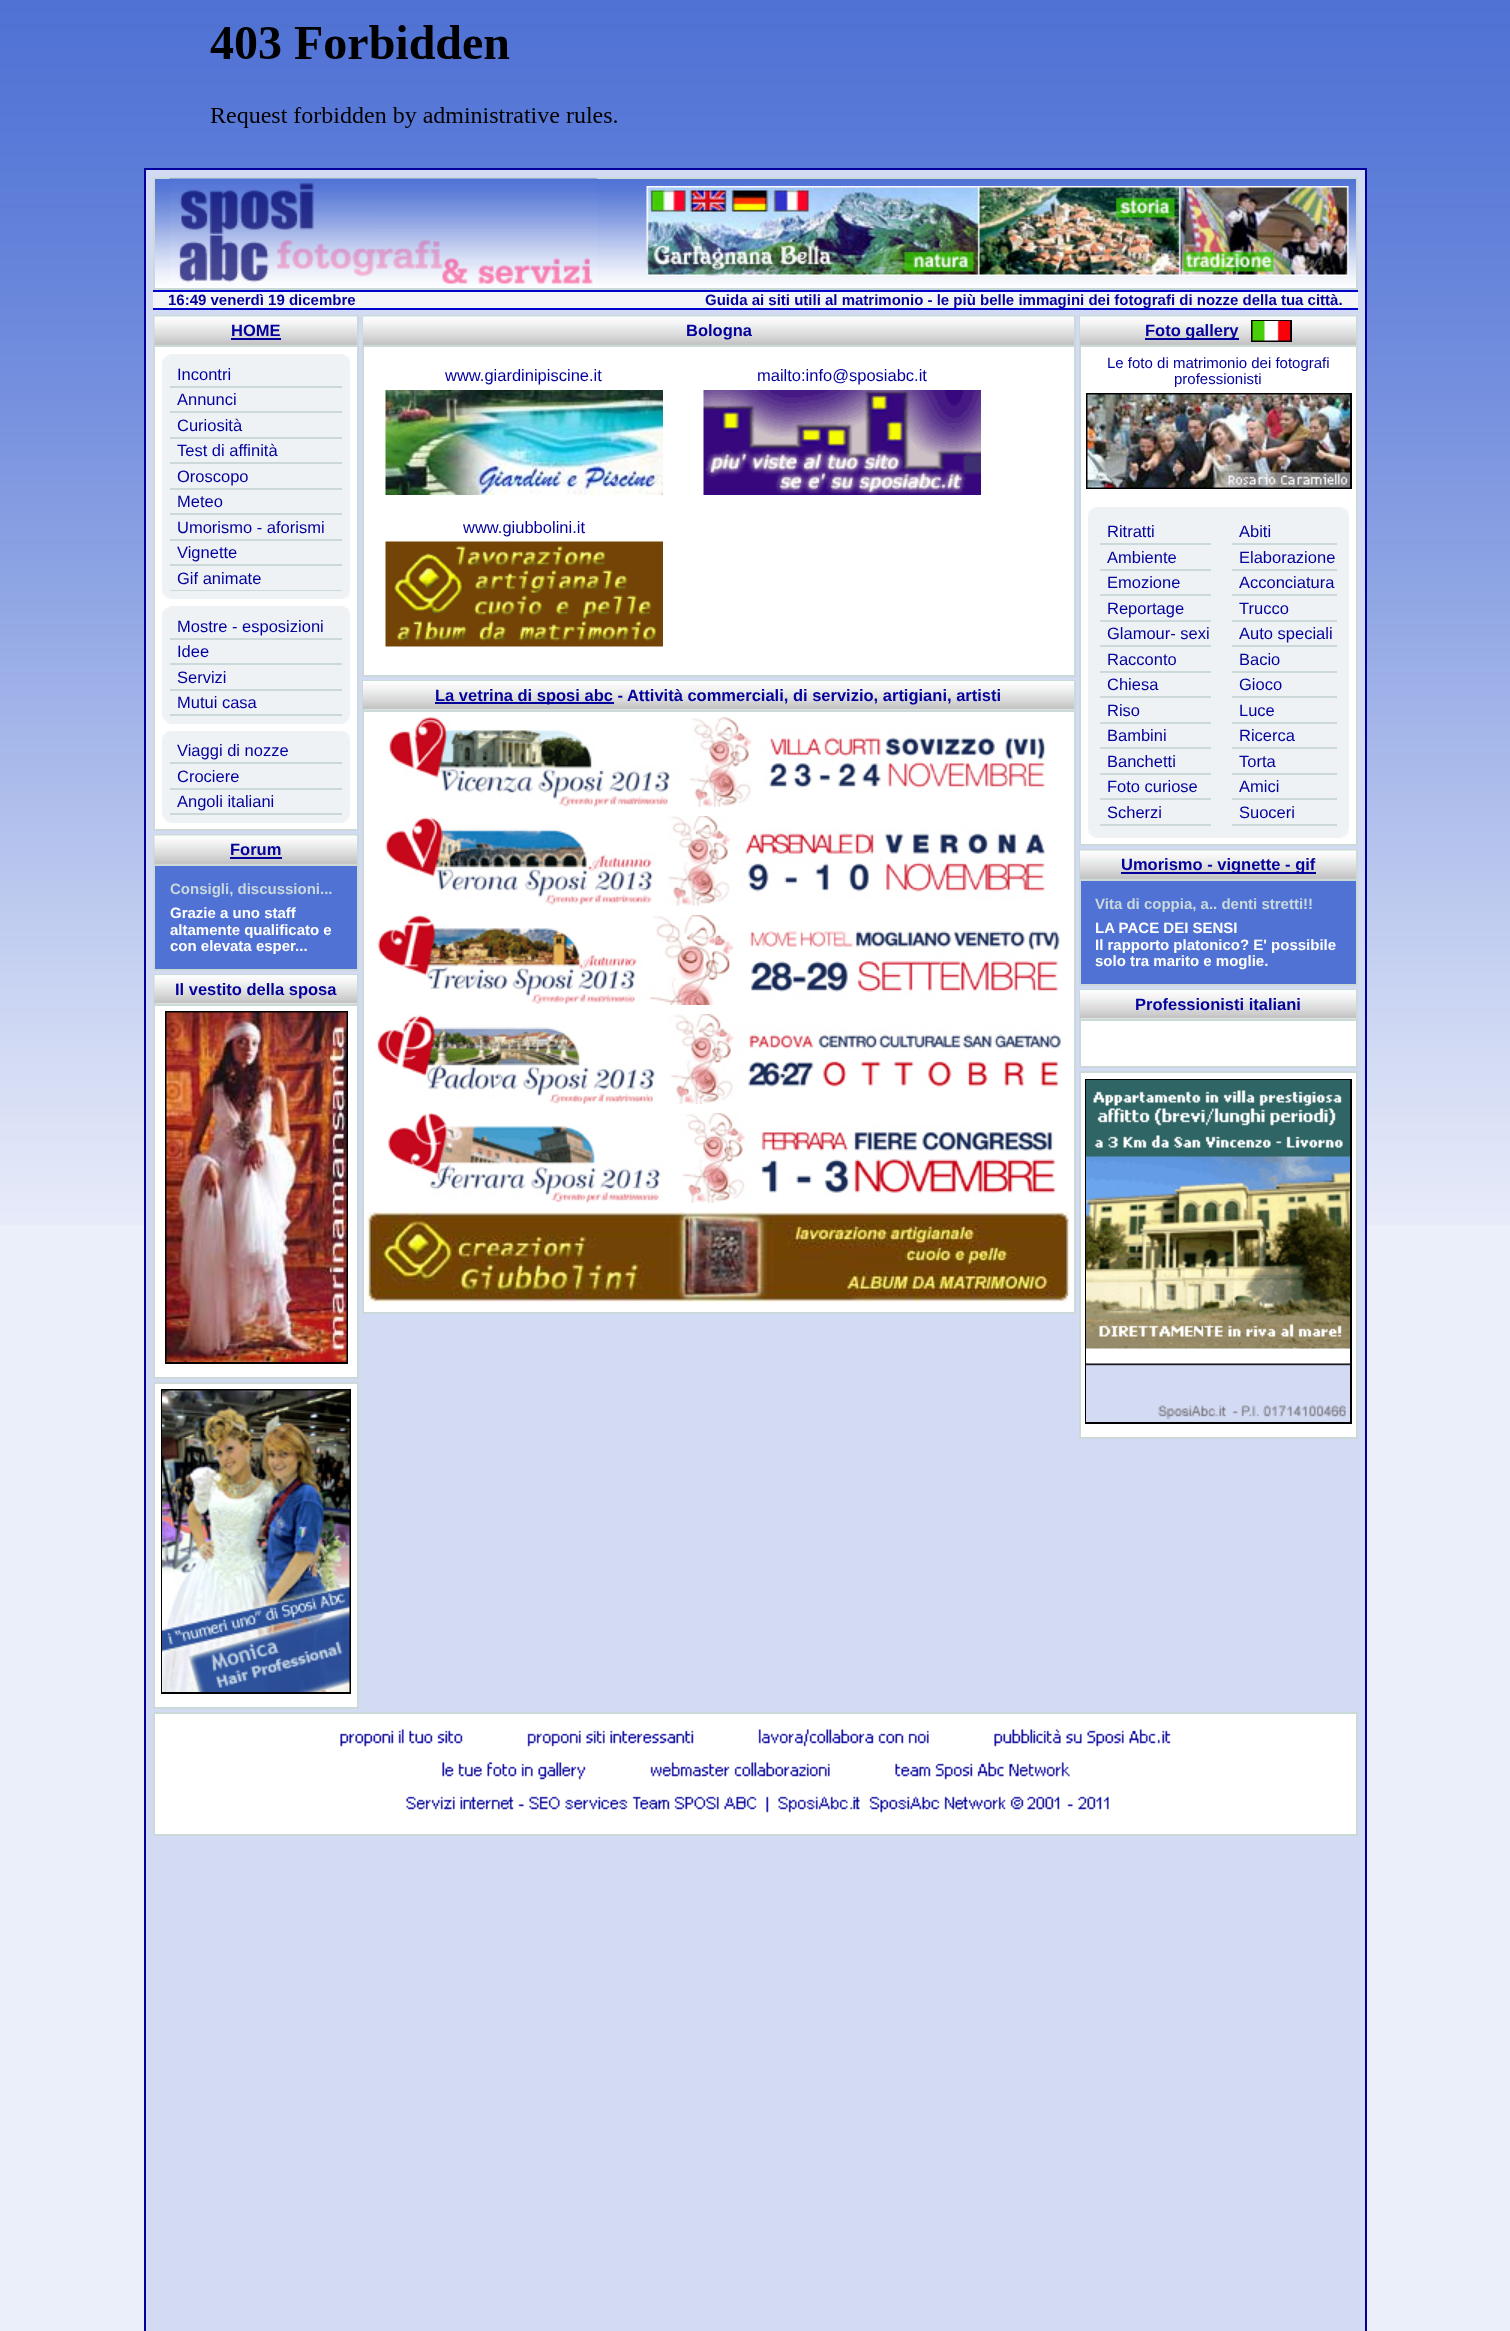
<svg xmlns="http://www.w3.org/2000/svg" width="1510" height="2331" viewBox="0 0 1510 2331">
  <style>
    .t1 { font: bold 15px Liberation Sans; fill: #03009b; }
    .t2 { font: bold 16.5px Liberation Sans; fill: #03009b; }
    .t3 { font: 16.5px Liberation Sans; fill: #03009b; }
    .t4 { font: bold 15px Liberation Sans; fill: #c9d8db; }
    .t5 { font: bold 15px Liberation Sans; fill: #fff; }
    .t6 { font: 15px Liberation Sans; fill: #03009b; }
  </style>
  <rect width="100%" height="100%" fill="#fff"/>
  <image x="0" y="0" width="1510" height="15" href="images/1.png"/>
  <rect x="0" y="1225" width="1510" height="1106" fill="#ebeffa"/>
  <image x="0" y="15" width="1510" height="1210" href="images/2.png"/>
  <image x="210" y="25" width="407" height="103" href="images/3.png"/>
  <rect x="145" y="169" width="1221" height="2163" fill="#d3daf4" stroke="#03009b" stroke-width="2"/>
  <image x="155" y="179" width="1201" height="109" href="images/4.png"/>
  <rect x="154" y="178" width="1203" height="111" fill="none" stroke="#cbd9d9" stroke-width="2"/>
  <image x="169" y="178" width="428" height="106" href="images/5.png"/>
  <image x="646" y="186" width="703" height="90" href="images/6.png"/>
  <rect x="153" y="292" width="1205" height="16" fill="#f4f5f9"/>
  <rect x="153" y="290" width="1205" height="2" fill="#00c"/>
  <rect x="153" y="308" width="1205" height="2" fill="#00c"/>
  <text x="168" y="305" class="t1">16:49 venerdì 19 dicembre</text>
  <text x="705" y="305" class="t1">Guida ai siti utili al matrimonio - le più belle immagini dei fotografi di nozze della tua città.</text>
  <rect x="155" y="347" width="202" height="482" fill="#fff"/>
  <rect x="154" y="316" width="204" height="514" fill="none" stroke="#cbd9d9" stroke-width="2"/>
  <image x="154" y="316" width="203" height="29" href="images/7.png"/>
  <rect x="155" y="345" width="202" height="2" fill="#cbd9d9"/>
  <text x="231" y="336" class="t2">HOME</text>
  <rect x="231" y="338" width="50" height="2" fill="#03009b"/>
  <rect x="167" y="354" width="178" height="2" fill="#f2f5f7"/>
  <rect x="344" y="354" width="2" height="2" fill="#f7f9fa"/>
  <rect x="167" y="354" width="2" height="2" fill="#f7f9fa"/>
  <rect x="170" y="354" width="172" height="2" fill="#eef2f5"/>
  <rect x="164" y="356" width="184" height="1" fill="#f1f4f6"/>
  <rect x="347" y="356" width="2" height="1" fill="#fdfdfe"/>
  <rect x="164" y="356" width="2" height="1" fill="#fdfdfe"/>
  <rect x="167" y="356" width="178" height="1" fill="#eef2f5"/>
  <rect x="164" y="357" width="184" height="2" fill="#eef2f5"/>
  <rect x="347" y="357" width="2" height="2" fill="#f1f4f6"/>
  <rect x="164" y="357" width="2" height="2" fill="#f1f4f6"/>
  <rect x="162" y="359" width="188" height="3" fill="#eef2f5"/>
  <rect x="348" y="359" width="2" height="1" fill="#f7f9fa"/>
  <rect x="162" y="359" width="2" height="1" fill="#f7f9fa"/>
  <rect x="348" y="360" width="2" height="2" fill="#f2f5f7"/>
  <rect x="162" y="360" width="2" height="2" fill="#f2f5f7"/>
  <rect x="162" y="362" width="188" height="232" fill="#eef2f5"/>
  <rect x="170" y="386" width="172" height="2" fill="#cbd9d9"/>
  <text x="177" y="380" class="t3">Incontri</text>
  <rect x="170" y="411" width="172" height="2" fill="#cbd9d9"/>
  <text x="177" y="405" class="t3">Annunci</text>
  <rect x="170" y="437" width="172" height="2" fill="#cbd9d9"/>
  <text x="177" y="431" class="t3">Curiosità</text>
  <rect x="170" y="462" width="172" height="2" fill="#cbd9d9"/>
  <text x="177" y="456" class="t3">Test di affinità</text>
  <rect x="170" y="488" width="172" height="2" fill="#cbd9d9"/>
  <text x="177" y="482" class="t3">Oroscopo</text>
  <rect x="170" y="513" width="172" height="2" fill="#cbd9d9"/>
  <text x="177" y="507" class="t3">Meteo</text>
  <rect x="170" y="539" width="172" height="2" fill="#cbd9d9"/>
  <text x="177" y="533" class="t3">Umorismo - aforismi</text>
  <rect x="170" y="564" width="172" height="2" fill="#cbd9d9"/>
  <text x="177" y="558" class="t3">Vignette</text>
  <rect x="170" y="590" width="172" height="1" fill="#cbd9d9"/>
  <text x="177" y="584" class="t3">Gif animate</text>
  <rect x="348" y="591" width="2" height="2" fill="#f2f5f7"/>
  <rect x="162" y="591" width="2" height="2" fill="#f2f5f7"/>
  <rect x="348" y="593" width="2" height="2" fill="#f7f9fa"/>
  <rect x="162" y="593" width="2" height="2" fill="#f7f9fa"/>
  <rect x="164" y="594" width="184" height="2" fill="#eef2f5"/>
  <rect x="347" y="594" width="2" height="2" fill="#f1f4f6"/>
  <rect x="164" y="594" width="2" height="2" fill="#f1f4f6"/>
  <rect x="164" y="596" width="184" height="2" fill="#f1f4f6"/>
  <rect x="347" y="596" width="2" height="2" fill="#fdfdfe"/>
  <rect x="164" y="596" width="2" height="2" fill="#fdfdfe"/>
  <rect x="167" y="596" width="178" height="1" fill="#eef2f5"/>
  <rect x="167" y="598" width="178" height="1" fill="#f2f5f7"/>
  <rect x="344" y="597" width="2" height="2" fill="#f7f9fa"/>
  <rect x="167" y="597" width="2" height="2" fill="#f7f9fa"/>
  <rect x="170" y="597" width="172" height="2" fill="#eef2f5"/>
  <rect x="167" y="606" width="178" height="2" fill="#f2f5f7"/>
  <rect x="344" y="606" width="2" height="2" fill="#f7f9fa"/>
  <rect x="167" y="606" width="2" height="2" fill="#f7f9fa"/>
  <rect x="170" y="606" width="172" height="2" fill="#eef2f5"/>
  <rect x="164" y="608" width="184" height="1" fill="#f1f4f6"/>
  <rect x="347" y="608" width="2" height="1" fill="#fdfdfe"/>
  <rect x="164" y="608" width="2" height="1" fill="#fdfdfe"/>
  <rect x="167" y="608" width="178" height="1" fill="#eef2f5"/>
  <rect x="164" y="609" width="184" height="2" fill="#eef2f5"/>
  <rect x="347" y="609" width="2" height="2" fill="#f1f4f6"/>
  <rect x="164" y="609" width="2" height="2" fill="#f1f4f6"/>
  <rect x="162" y="611" width="188" height="3" fill="#eef2f5"/>
  <rect x="348" y="611" width="2" height="1" fill="#f7f9fa"/>
  <rect x="162" y="611" width="2" height="1" fill="#f7f9fa"/>
  <rect x="348" y="612" width="2" height="2" fill="#f2f5f7"/>
  <rect x="162" y="612" width="2" height="2" fill="#f2f5f7"/>
  <rect x="162" y="614" width="188" height="103" fill="#eef2f5"/>
  <rect x="170" y="638" width="172" height="2" fill="#cbd9d9"/>
  <text x="177" y="632" class="t3">Mostre - esposizioni</text>
  <rect x="170" y="663" width="172" height="2" fill="#cbd9d9"/>
  <text x="177" y="657" class="t3">Idee</text>
  <rect x="170" y="689" width="172" height="2" fill="#cbd9d9"/>
  <text x="177" y="683" class="t3">Servizi</text>
  <rect x="170" y="714" width="172" height="2" fill="#cbd9d9"/>
  <text x="177" y="708" class="t3">Mutui casa</text>
  <rect x="348" y="716" width="2" height="1" fill="#f2f5f7"/>
  <rect x="162" y="716" width="2" height="1" fill="#f2f5f7"/>
  <rect x="162" y="717" width="188" height="2" fill="#eef2f5"/>
  <rect x="348" y="717" width="2" height="2" fill="#f7f9fa"/>
  <rect x="162" y="717" width="2" height="2" fill="#f7f9fa"/>
  <rect x="164" y="719" width="184" height="1" fill="#eef2f5"/>
  <rect x="347" y="719" width="2" height="1" fill="#f1f4f6"/>
  <rect x="164" y="719" width="2" height="1" fill="#f1f4f6"/>
  <rect x="164" y="720" width="184" height="2" fill="#f1f4f6"/>
  <rect x="347" y="720" width="2" height="2" fill="#fdfdfe"/>
  <rect x="164" y="720" width="2" height="2" fill="#fdfdfe"/>
  <rect x="167" y="720" width="178" height="2" fill="#eef2f5"/>
  <rect x="167" y="722" width="178" height="2" fill="#f2f5f7"/>
  <rect x="344" y="722" width="2" height="2" fill="#f7f9fa"/>
  <rect x="167" y="722" width="2" height="2" fill="#f7f9fa"/>
  <rect x="170" y="722" width="172" height="2" fill="#eef2f5"/>
  <rect x="167" y="731" width="178" height="1" fill="#f2f5f7"/>
  <rect x="344" y="731" width="2" height="1" fill="#f7f9fa"/>
  <rect x="167" y="731" width="2" height="1" fill="#f7f9fa"/>
  <rect x="170" y="731" width="172" height="1" fill="#eef2f5"/>
  <rect x="164" y="732" width="184" height="2" fill="#f1f4f6"/>
  <rect x="347" y="732" width="2" height="2" fill="#fdfdfe"/>
  <rect x="164" y="732" width="2" height="2" fill="#fdfdfe"/>
  <rect x="167" y="732" width="178" height="2" fill="#eef2f5"/>
  <rect x="164" y="734" width="184" height="1" fill="#eef2f5"/>
  <rect x="347" y="734" width="2" height="1" fill="#f1f4f6"/>
  <rect x="164" y="734" width="2" height="1" fill="#f1f4f6"/>
  <rect x="162" y="735" width="188" height="4" fill="#eef2f5"/>
  <rect x="348" y="735" width="2" height="2" fill="#f7f9fa"/>
  <rect x="162" y="735" width="2" height="2" fill="#f7f9fa"/>
  <rect x="348" y="737" width="2" height="2" fill="#f2f5f7"/>
  <rect x="162" y="737" width="2" height="2" fill="#f2f5f7"/>
  <rect x="162" y="739" width="188" height="76" fill="#eef2f5"/>
  <rect x="170" y="762" width="172" height="2" fill="#cbd9d9"/>
  <text x="177" y="756" class="t3">Viaggi di nozze</text>
  <rect x="170" y="788" width="172" height="2" fill="#cbd9d9"/>
  <text x="177" y="782" class="t3">Crociere</text>
  <rect x="170" y="813" width="172" height="2" fill="#cbd9d9"/>
  <text x="177" y="807" class="t3">Angoli italiani</text>
  <rect x="162" y="815" width="188" height="3" fill="#eef2f5"/>
  <rect x="348" y="815" width="2" height="1" fill="#f2f5f7"/>
  <rect x="162" y="815" width="2" height="1" fill="#f2f5f7"/>
  <rect x="348" y="816" width="2" height="2" fill="#f7f9fa"/>
  <rect x="162" y="816" width="2" height="2" fill="#f7f9fa"/>
  <rect x="164" y="818" width="184" height="1" fill="#eef2f5"/>
  <rect x="347" y="818" width="2" height="1" fill="#f1f4f6"/>
  <rect x="164" y="818" width="2" height="1" fill="#f1f4f6"/>
  <rect x="164" y="819" width="184" height="2" fill="#f1f4f6"/>
  <rect x="347" y="819" width="2" height="2" fill="#fdfdfe"/>
  <rect x="164" y="819" width="2" height="2" fill="#fdfdfe"/>
  <rect x="167" y="819" width="178" height="2" fill="#eef2f5"/>
  <rect x="167" y="821" width="178" height="2" fill="#f2f5f7"/>
  <rect x="344" y="821" width="2" height="2" fill="#f7f9fa"/>
  <rect x="167" y="821" width="2" height="2" fill="#f7f9fa"/>
  <rect x="170" y="821" width="172" height="2" fill="#eef2f5"/>
  <rect x="155" y="866" width="202" height="103" fill="#5072d5"/>
  <rect x="154" y="835" width="204" height="135" fill="none" stroke="#cbd9d9" stroke-width="2"/>
  <image x="154" y="835" width="203" height="29" href="images/7.png"/>
  <rect x="155" y="864" width="202" height="2" fill="#cbd9d9"/>
  <text x="230" y="855" class="t2">Forum</text>
  <rect x="230" y="857" width="52" height="2" fill="#03009b"/>
  <text x="170" y="894" class="t4">Consigli, discussioni...</text>
  <text x="170" y="918" class="t5">Grazie a uno staff</text>
  <text x="170" y="935" class="t5">altamente qualificato e</text>
  <text x="170" y="951" class="t5">con elevata esper...</text>
  <rect x="155" y="1003" width="202" height="374" fill="#fff"/>
  <rect x="154" y="975" width="204" height="403" fill="none" stroke="#cbd9d9" stroke-width="2"/>
  <image x="154" y="975" width="203" height="29" href="images/8.png"/>
  <rect x="155" y="1004" width="202" height="2" fill="#cbd9d9"/>
  <text x="175" y="995" class="t2">Il vestito della sposa</text>
  <rect x="166" y="1012" width="181" height="351" fill="none" stroke="#000" stroke-width="2"/>
  <image x="166" y="1012" width="181" height="350" href="images/9.png"/>
  <rect x="154" y="1383" width="204" height="325" fill="#fff" stroke="#cbd9d9" stroke-width="2"/>
  <rect x="162" y="1390" width="188" height="303" fill="none" stroke="#000" stroke-width="2"/>
  <image x="162" y="1390" width="188" height="302" href="images/10.png"/>
  <rect x="364" y="347" width="710" height="328" fill="#fff"/>
  <rect x="363" y="316" width="712" height="360" fill="none" stroke="#cbd9d9" stroke-width="2"/>
  <image x="363" y="316" width="711" height="29" href="images/11.png"/>
  <rect x="363" y="345" width="711" height="2" fill="#cbd9d9"/>
  <text x="686" y="336" class="t2">Bologna</text>
  <text x="445" y="381" class="t3">www.giardinipiscine.it</text>
  <image x="385" y="390" width="278" height="105" href="images/12.png"/>
  <text x="757" y="381" class="t3">mailto:info@sposiabc.it</text>
  <image x="703" y="390" width="278" height="105" href="images/13.png"/>
  <text x="463" y="533" class="t3">www.giubbolini.it</text>
  <image x="385" y="541" width="278" height="106" href="images/14.png"/>
  <rect x="364" y="709" width="710" height="603" fill="#fff"/>
  <rect x="363" y="681" width="712" height="632" fill="none" stroke="#cbd9d9" stroke-width="2"/>
  <image x="363" y="681" width="711" height="29" href="images/15.png"/>
  <rect x="363" y="710" width="711" height="2" fill="#cbd9d9"/>
  <rect x="435" y="702" width="179" height="2" fill="#03009b"/>
  <text x="435" y="701" class="t2">La vetrina di sposi abc - Attività commerciali, di servizio, artigiani, artisti</text>
  <image x="388" y="717" width="658" height="90" href="images/16.png"/>
  <image x="385" y="816" width="661" height="90" href="images/17.png"/>
  <image x="377" y="915" width="683" height="90" href="images/18.png"/>
  <image x="377" y="1014" width="685" height="90" href="images/19.png"/>
  <image x="388" y="1113" width="667" height="90" href="images/20.png"/>
  <image x="367" y="1212" width="703" height="90" href="images/21.png"/>
  <rect x="1081" y="347" width="275" height="497" fill="#fff"/>
  <rect x="1080" y="316" width="277" height="529" fill="none" stroke="#cbd9d9" stroke-width="2"/>
  <image x="1080" y="316" width="276" height="29" href="images/22.png"/>
  <rect x="1080" y="345" width="276" height="2" fill="#cbd9d9"/>
  <rect x="1252" y="321" width="39" height="20" fill="none" stroke="#000" stroke-width="2"/>
  <rect x="1145" y="338" width="94" height="2" fill="#03009b"/>
  <text x="1145" y="336" class="t2">Foto gallery</text>
  <image x="1252" y="321" width="38" height="20" href="images/23.png"/>
  <text x="1107" y="368" class="t6">Le foto di matrimonio dei fotografi</text>
  <text x="1174" y="384" class="t6">professionisti</text>
  <rect x="1087" y="394" width="264" height="94" fill="none" stroke="#000" stroke-width="2"/>
  <image x="1087" y="394" width="263" height="94" href="images/24.png"/>
  <rect x="1092" y="507" width="252" height="2" fill="#f2f5f7"/>
  <rect x="1343" y="507" width="2" height="2" fill="#f7f9fa"/>
  <rect x="1092" y="507" width="2" height="2" fill="#f7f9fa"/>
  <rect x="1095" y="507" width="246" height="2" fill="#eef2f5"/>
  <rect x="1089" y="509" width="258" height="1" fill="#f1f4f6"/>
  <rect x="1346" y="509" width="2" height="1" fill="#fdfdfe"/>
  <rect x="1089" y="509" width="2" height="1" fill="#fdfdfe"/>
  <rect x="1092" y="509" width="252" height="1" fill="#eef2f5"/>
  <rect x="1089" y="510" width="258" height="2" fill="#eef2f5"/>
  <rect x="1346" y="510" width="2" height="2" fill="#f1f4f6"/>
  <rect x="1089" y="510" width="2" height="2" fill="#f1f4f6"/>
  <rect x="1088" y="512" width="261" height="3" fill="#eef2f5"/>
  <rect x="1347" y="512" width="2" height="1" fill="#f7f9fa"/>
  <rect x="1088" y="512" width="2" height="1" fill="#f7f9fa"/>
  <rect x="1347" y="513" width="2" height="2" fill="#f2f5f7"/>
  <rect x="1088" y="513" width="2" height="2" fill="#f2f5f7"/>
  <rect x="1088" y="515" width="261" height="318" fill="#eef2f5"/>
  <rect x="1100" y="543" width="111" height="2" fill="#cbd9d9"/>
  <text x="1107" y="537" class="t3">Ritratti</text>
  <rect x="1100" y="569" width="111" height="2" fill="#cbd9d9"/>
  <text x="1107" y="563" class="t3">Ambiente</text>
  <rect x="1100" y="594" width="111" height="2" fill="#cbd9d9"/>
  <text x="1107" y="588" class="t3">Emozione</text>
  <rect x="1100" y="620" width="111" height="2" fill="#cbd9d9"/>
  <text x="1107" y="614" class="t3">Reportage</text>
  <rect x="1100" y="645" width="111" height="2" fill="#cbd9d9"/>
  <text x="1107" y="639" class="t3">Glamour- sexi</text>
  <rect x="1100" y="671" width="111" height="2" fill="#cbd9d9"/>
  <text x="1107" y="665" class="t3">Racconto</text>
  <rect x="1100" y="696" width="111" height="2" fill="#cbd9d9"/>
  <text x="1107" y="690" class="t3">Chiesa</text>
  <rect x="1100" y="722" width="111" height="2" fill="#cbd9d9"/>
  <text x="1107" y="716" class="t3">Riso</text>
  <rect x="1100" y="747" width="111" height="2" fill="#cbd9d9"/>
  <text x="1107" y="741" class="t3">Bambini</text>
  <rect x="1100" y="773" width="111" height="2" fill="#cbd9d9"/>
  <text x="1107" y="767" class="t3">Banchetti</text>
  <rect x="1100" y="798" width="111" height="2" fill="#cbd9d9"/>
  <text x="1107" y="792" class="t3">Foto curiose</text>
  <rect x="1100" y="824" width="111" height="2" fill="#cbd9d9"/>
  <text x="1107" y="818" class="t3">Scherzi</text>
  <rect x="1232" y="543" width="105" height="2" fill="#cbd9d9"/>
  <text x="1239" y="537" class="t3">Abiti</text>
  <rect x="1232" y="569" width="105" height="2" fill="#cbd9d9"/>
  <text x="1239" y="563" class="t3">Elaborazione</text>
  <rect x="1232" y="594" width="105" height="2" fill="#cbd9d9"/>
  <text x="1239" y="588" class="t3">Acconciatura</text>
  <rect x="1232" y="620" width="105" height="2" fill="#cbd9d9"/>
  <text x="1239" y="614" class="t3">Trucco</text>
  <rect x="1232" y="645" width="105" height="2" fill="#cbd9d9"/>
  <text x="1239" y="639" class="t3">Auto speciali</text>
  <rect x="1232" y="671" width="105" height="2" fill="#cbd9d9"/>
  <text x="1239" y="665" class="t3">Bacio</text>
  <rect x="1232" y="696" width="105" height="2" fill="#cbd9d9"/>
  <text x="1239" y="690" class="t3">Gioco</text>
  <rect x="1232" y="722" width="105" height="2" fill="#cbd9d9"/>
  <text x="1239" y="716" class="t3">Luce</text>
  <rect x="1232" y="747" width="105" height="2" fill="#cbd9d9"/>
  <text x="1239" y="741" class="t3">Ricerca</text>
  <rect x="1232" y="773" width="105" height="2" fill="#cbd9d9"/>
  <text x="1239" y="767" class="t3">Torta</text>
  <rect x="1232" y="798" width="105" height="2" fill="#cbd9d9"/>
  <text x="1239" y="792" class="t3">Amici</text>
  <rect x="1232" y="824" width="105" height="2" fill="#cbd9d9"/>
  <text x="1239" y="818" class="t3">Suoceri</text>
  <rect x="1347" y="830" width="2" height="1" fill="#f2f5f7"/>
  <rect x="1088" y="830" width="2" height="1" fill="#f2f5f7"/>
  <rect x="1347" y="831" width="2" height="2" fill="#f7f9fa"/>
  <rect x="1088" y="831" width="2" height="2" fill="#f7f9fa"/>
  <rect x="1089" y="833" width="258" height="1" fill="#eef2f5"/>
  <rect x="1346" y="833" width="2" height="1" fill="#f1f4f6"/>
  <rect x="1089" y="833" width="2" height="1" fill="#f1f4f6"/>
  <rect x="1089" y="834" width="258" height="2" fill="#f1f4f6"/>
  <rect x="1346" y="834" width="2" height="2" fill="#fdfdfe"/>
  <rect x="1089" y="834" width="2" height="2" fill="#fdfdfe"/>
  <rect x="1092" y="834" width="252" height="2" fill="#eef2f5"/>
  <rect x="1092" y="836" width="252" height="2" fill="#f2f5f7"/>
  <rect x="1343" y="836" width="2" height="2" fill="#f7f9fa"/>
  <rect x="1092" y="836" width="2" height="2" fill="#f7f9fa"/>
  <rect x="1095" y="836" width="246" height="2" fill="#eef2f5"/>
  <rect x="1081" y="881" width="275" height="103" fill="#5072d5"/>
  <rect x="1080" y="850" width="277" height="135" fill="none" stroke="#cbd9d9" stroke-width="2"/>
  <image x="1080" y="850" width="276" height="29" href="images/22.png"/>
  <rect x="1080" y="879" width="276" height="2" fill="#cbd9d9"/>
  <rect x="1121" y="872" width="195" height="2" fill="#03009b"/>
  <text x="1121" y="870" class="t2">Umorismo - vignette - gif</text>
  <text x="1095" y="909" class="t4">Vita di coppia, a.. denti stretti!!</text>
  <text x="1095" y="933" class="t5">LA PACE DEI SENSI</text>
  <text x="1095" y="950" class="t5">Il rapporto platonico? E' possibile</text>
  <text x="1095" y="966" class="t5">solo tra marito e moglie.</text>
  <rect x="1081" y="1018" width="275" height="48" fill="#fff"/>
  <rect x="1080" y="990" width="277" height="77" fill="none" stroke="#cbd9d9" stroke-width="2"/>
  <image x="1080" y="990" width="276" height="29" href="images/25.png"/>
  <rect x="1080" y="1019" width="276" height="2" fill="#cbd9d9"/>
  <text x="1135" y="1010" class="t2">Professionisti italiani</text>
  <rect x="1080" y="1072" width="277" height="366" fill="#fff" stroke="#cbd9d9" stroke-width="2"/>
  <rect x="1086" y="1080" width="265" height="343" fill="none" stroke="#000" stroke-width="2"/>
  <image x="1086" y="1080" width="264" height="342" href="images/26.png"/>
  <rect x="154" y="1713" width="1203" height="122" fill="#fff" stroke="#cbd9d9" stroke-width="2"/>
  <image x="340" y="1729" width="831" height="84" href="images/27.png"/>
</svg>
